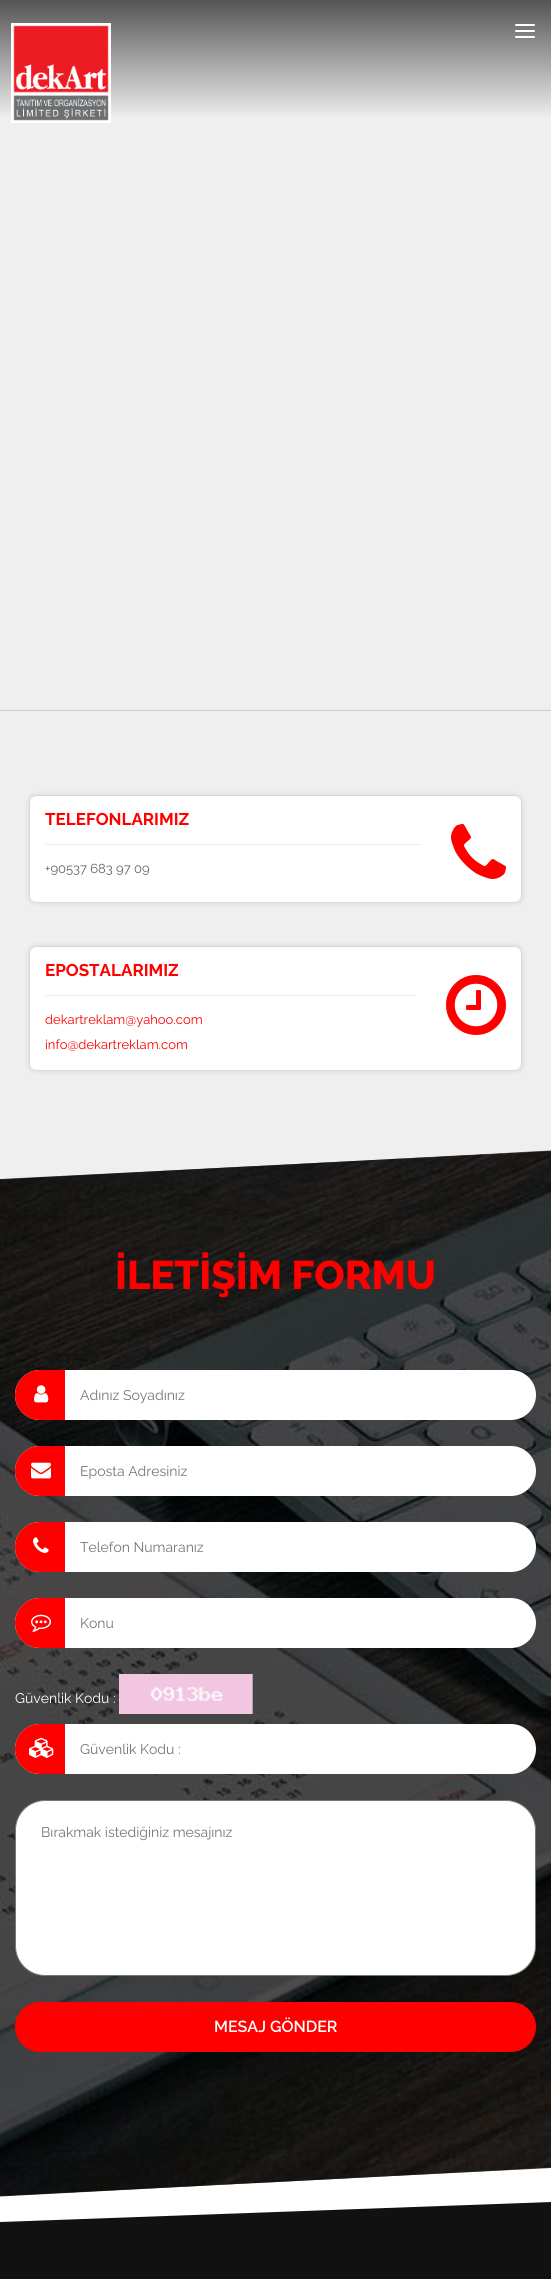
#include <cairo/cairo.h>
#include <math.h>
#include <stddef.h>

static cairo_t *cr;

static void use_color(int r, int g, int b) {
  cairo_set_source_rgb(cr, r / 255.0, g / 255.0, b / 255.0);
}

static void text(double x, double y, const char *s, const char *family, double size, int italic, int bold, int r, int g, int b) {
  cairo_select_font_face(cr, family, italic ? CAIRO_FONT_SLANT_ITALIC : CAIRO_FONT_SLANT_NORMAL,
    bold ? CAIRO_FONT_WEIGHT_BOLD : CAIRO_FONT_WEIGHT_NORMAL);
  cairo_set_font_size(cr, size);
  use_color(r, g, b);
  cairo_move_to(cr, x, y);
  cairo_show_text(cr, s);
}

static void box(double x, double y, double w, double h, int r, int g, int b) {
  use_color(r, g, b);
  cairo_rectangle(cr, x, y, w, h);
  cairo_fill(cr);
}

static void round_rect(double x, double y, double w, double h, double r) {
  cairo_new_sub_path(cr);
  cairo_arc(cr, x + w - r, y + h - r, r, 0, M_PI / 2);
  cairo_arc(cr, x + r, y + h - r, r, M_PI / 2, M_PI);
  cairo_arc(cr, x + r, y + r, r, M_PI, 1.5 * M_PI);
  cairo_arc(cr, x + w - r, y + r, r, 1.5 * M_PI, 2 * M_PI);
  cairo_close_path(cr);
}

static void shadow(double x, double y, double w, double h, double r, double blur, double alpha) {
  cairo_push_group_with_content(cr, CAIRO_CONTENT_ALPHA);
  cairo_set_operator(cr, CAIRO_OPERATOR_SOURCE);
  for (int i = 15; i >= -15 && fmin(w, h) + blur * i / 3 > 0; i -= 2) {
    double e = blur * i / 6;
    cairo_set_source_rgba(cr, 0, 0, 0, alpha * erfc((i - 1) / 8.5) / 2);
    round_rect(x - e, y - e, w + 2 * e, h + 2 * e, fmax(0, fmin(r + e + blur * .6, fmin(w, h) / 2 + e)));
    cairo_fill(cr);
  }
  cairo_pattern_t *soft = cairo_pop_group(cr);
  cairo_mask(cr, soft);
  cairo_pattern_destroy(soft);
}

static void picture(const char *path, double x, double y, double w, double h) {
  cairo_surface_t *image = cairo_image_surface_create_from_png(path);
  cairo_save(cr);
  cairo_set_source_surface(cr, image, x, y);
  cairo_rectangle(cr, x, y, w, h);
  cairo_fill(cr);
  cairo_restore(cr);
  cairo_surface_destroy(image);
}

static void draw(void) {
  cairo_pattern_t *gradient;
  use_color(255, 255, 255);
  cairo_paint(cr);
  box(0, 925, 551, 255, 239, 239, 239);
  cairo_new_path(cr);
  cairo_move_to(cr, -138, 0);
  cairo_line_to(cr, 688, -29);
  cairo_line_to(cr, 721, 919);
  cairo_line_to(cr, -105, 948);
  cairo_close_path(cr);
  cairo_fill(cr);
  gradient = cairo_pattern_create_linear(276, 0, 276, 120);
  cairo_pattern_add_color_stop_rgba(gradient, 0, 0.329, 0.329, 0.329, 1);
  cairo_pattern_add_color_stop_rgba(gradient, 0.99, 0.937, 0.937, 0.937, 1);
  cairo_pattern_add_color_stop_rgba(gradient, 1, 0.937, 0.937, 0.937, 1);
  cairo_set_source(cr, gradient);
  cairo_pattern_destroy(gradient);
  cairo_rectangle(cr, 0, 0, 551, 117);
  cairo_fill(cr);
  picture("img_01.png", 11, 23, 100, 100);
  use_color(255, 255, 255);
  round_rect(515, 24, 20, 2, 1);
  cairo_fill(cr);
  round_rect(515, 30, 20, 2, 1);
  cairo_fill(cr);
  round_rect(515, 36, 20, 2, 1);
  cairo_fill(cr);
  box(0, 710, 551, 1, 204, 204, 204);
  use_color(0, 0, 0);
  shadow(30, 796, 491, 106, 7, 3.5, 0.15);
  cairo_rectangle(cr, 29.5, 795.5, 492, 107);
  cairo_set_source_rgba(cr, 0, 0, 0, 0.03);
  cairo_set_line_width(cr, 1);
  cairo_stroke(cr);
  use_color(255, 255, 255);
  round_rect(30, 796, 491, 106, 7);
  cairo_fill(cr);
  box(45, 844, 376, 1, 238, 238, 238);
  picture("img_02.png", 451, 824, 55, 55);
  use_color(0, 0, 0);
  shadow(30, 947, 491, 123, 7, 3.5, 0.15);
  cairo_rectangle(cr, 29.5, 946.5, 492, 124);
  cairo_set_source_rgba(cr, 0, 0, 0, 0.03);
  cairo_stroke(cr);
  use_color(255, 255, 255);
  round_rect(30, 947, 491, 123, 7);
  cairo_fill(cr);
  box(45, 995, 371, 1, 238, 238, 238);
  picture("img_03.png", 446, 975, 60, 60);
  picture("img_04.png", 0, 1150, 551, 1047);
  cairo_set_source_rgba(cr, 0, 0, 0, 0.7);
  cairo_new_path(cr);
  cairo_move_to(cr, 0, 1179);
  cairo_line_to(cr, 551, 1151);
  cairo_line_to(cr, 551, 2168);
  cairo_line_to(cr, 0, 2196);
  cairo_close_path(cr);
  cairo_fill(cr);
  use_color(255, 255, 255);
  round_rect(15, 1370, 521, 50, 25);
  cairo_fill(cr);
  use_color(255, 0, 0);
  cairo_new_path(cr);
  cairo_move_to(cr, 40, 1370);
  cairo_line_to(cr, 65, 1370);
  cairo_line_to(cr, 65, 1420);
  cairo_line_to(cr, 40, 1420);
  cairo_curve_to(cr, 26, 1420, 15, 1409, 15, 1395);
  cairo_curve_to(cr, 15, 1381, 26, 1370, 40, 1370);
  cairo_close_path(cr);
  cairo_fill(cr);
  picture("img_05.png", 34, 1385, 15, 18);
  use_color(255, 255, 255);
  round_rect(15, 1446, 521, 50, 25);
  cairo_fill(cr);
  use_color(255, 0, 0);
  cairo_new_path(cr);
  cairo_move_to(cr, 40, 1446);
  cairo_line_to(cr, 65, 1446);
  cairo_line_to(cr, 65, 1496);
  cairo_line_to(cr, 40, 1496);
  cairo_curve_to(cr, 26, 1496, 15, 1485, 15, 1471);
  cairo_curve_to(cr, 15, 1457, 26, 1446, 40, 1446);
  cairo_close_path(cr);
  cairo_fill(cr);
  picture("img_06.png", 31, 1462, 20, 17);
  use_color(255, 255, 255);
  round_rect(15, 1522, 521, 50, 25);
  cairo_fill(cr);
  use_color(255, 0, 0);
  cairo_new_path(cr);
  cairo_move_to(cr, 40, 1522);
  cairo_line_to(cr, 65, 1522);
  cairo_line_to(cr, 65, 1572);
  cairo_line_to(cr, 40, 1572);
  cairo_curve_to(cr, 26, 1572, 15, 1561, 15, 1547);
  cairo_curve_to(cr, 15, 1533, 26, 1522, 40, 1522);
  cairo_close_path(cr);
  cairo_fill(cr);
  picture("img_07.png", 33, 1537, 16, 16);
  use_color(255, 255, 255);
  round_rect(15, 1598, 521, 50, 25);
  cairo_fill(cr);
  use_color(255, 0, 0);
  cairo_new_path(cr);
  cairo_move_to(cr, 40, 1598);
  cairo_line_to(cr, 65, 1598);
  cairo_line_to(cr, 65, 1648);
  cairo_line_to(cr, 40, 1648);
  cairo_curve_to(cr, 26, 1648, 15, 1637, 15, 1623);
  cairo_curve_to(cr, 15, 1609, 26, 1598, 40, 1598);
  cairo_close_path(cr);
  cairo_fill(cr);
  picture("img_08.png", 31, 1614, 20, 18);
  picture("img_09.png", 119, 1674, 134, 40);
  use_color(255, 255, 255);
  round_rect(15, 1724, 521, 50, 25);
  cairo_fill(cr);
  use_color(255, 0, 0);
  cairo_new_path(cr);
  cairo_move_to(cr, 40, 1724);
  cairo_line_to(cr, 65, 1724);
  cairo_line_to(cr, 65, 1774);
  cairo_line_to(cr, 40, 1774);
  cairo_curve_to(cr, 26, 1774, 15, 1763, 15, 1749);
  cairo_curve_to(cr, 15, 1735, 26, 1724, 40, 1724);
  cairo_close_path(cr);
  cairo_fill(cr);
  picture("img_10.png", 29, 1737, 25, 21);
  use_color(255, 255, 255);
  round_rect(15.5, 1800.5, 520, 175, 29.5);
  cairo_fill_preserve(cr);
  use_color(118, 118, 118);
  cairo_stroke(cr);
  use_color(255, 0, 0);
  round_rect(15, 2002, 521, 50, 25);
  cairo_fill(cr);
  use_color(17, 17, 17);
  cairo_new_path(cr);
  cairo_move_to(cr, 0, 2222);
  cairo_line_to(cr, 551, 2202);
  cairo_line_to(cr, 551, 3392);
  cairo_line_to(cr, 0, 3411);
  cairo_close_path(cr);
  cairo_fill(cr);
  text(45, 825, "TELEFONLARIMIZ", "Raleway", 17, 0, 1, 255, 0, 0);
  text(45, 873, "+90537 683 97 09", "Raleway", 13, 0, 0, 102, 102, 102);
  text(45, 976, "EPOSTALARIMIZ", "Raleway", 17, 0, 1, 255, 0, 0);
  text(45, 1024, "dekartreklam@yahoo.com", "Raleway", 13, 0, 0, 255, 0, 0);
  text(45, 1049, "info@dekartreklam.com", "Raleway", 13, 0, 0, 255, 0, 0);
  text(115, 1289, "İLETİŞİM FORMU", "Raleway ExtraBold", 40, 0, 0, 255, 0, 0);
  text(80, 1400, "Adınız Soyadınız", "Raleway", 14, 0, 0, 117, 117, 117);
  text(80, 1476, "Eposta Adresiniz", "Raleway", 14, 0, 0, 117, 117, 117);
  text(80, 1552, "Telefon Numaranız", "Raleway", 14, 0, 0, 117, 117, 117);
  text(80, 1628, "Konu", "Raleway", 14, 0, 0, 117, 117, 117);
  text(15, 1703, "Güvenlik Kodu :", "Raleway", 14, 0, 0, 255, 255, 255);
  text(80, 1754, "Güvenlik Kodu :", "Raleway", 14, 0, 0, 117, 117, 117);
  text(41, 1837, "Bırakmak istediğiniz mesajınız", "Raleway", 14, 0, 0, 117, 117, 117);
  text(214, 2032, "MESAJ GÖNDER", "Raleway SemiBold", 16, 0, 0, 255, 255, 255);
}

int main(void) {
  cairo_surface_t *surface = cairo_image_surface_create(CAIRO_FORMAT_RGB24, 551, 2279);
  cr = cairo_create(surface);
  cairo_font_options_t *options = cairo_font_options_create();
  cairo_font_options_set_hint_metrics(options, CAIRO_HINT_METRICS_OFF);
  cairo_font_options_set_hint_style(options, CAIRO_HINT_STYLE_NONE);
  cairo_set_font_options(cr, options);
  cairo_set_miter_limit(cr, 4);
  draw();
  cairo_surface_write_to_png(surface, "out.png");
  cairo_font_options_destroy(options);
  cairo_destroy(cr);
  cairo_surface_destroy(surface);
  return 0;
}
